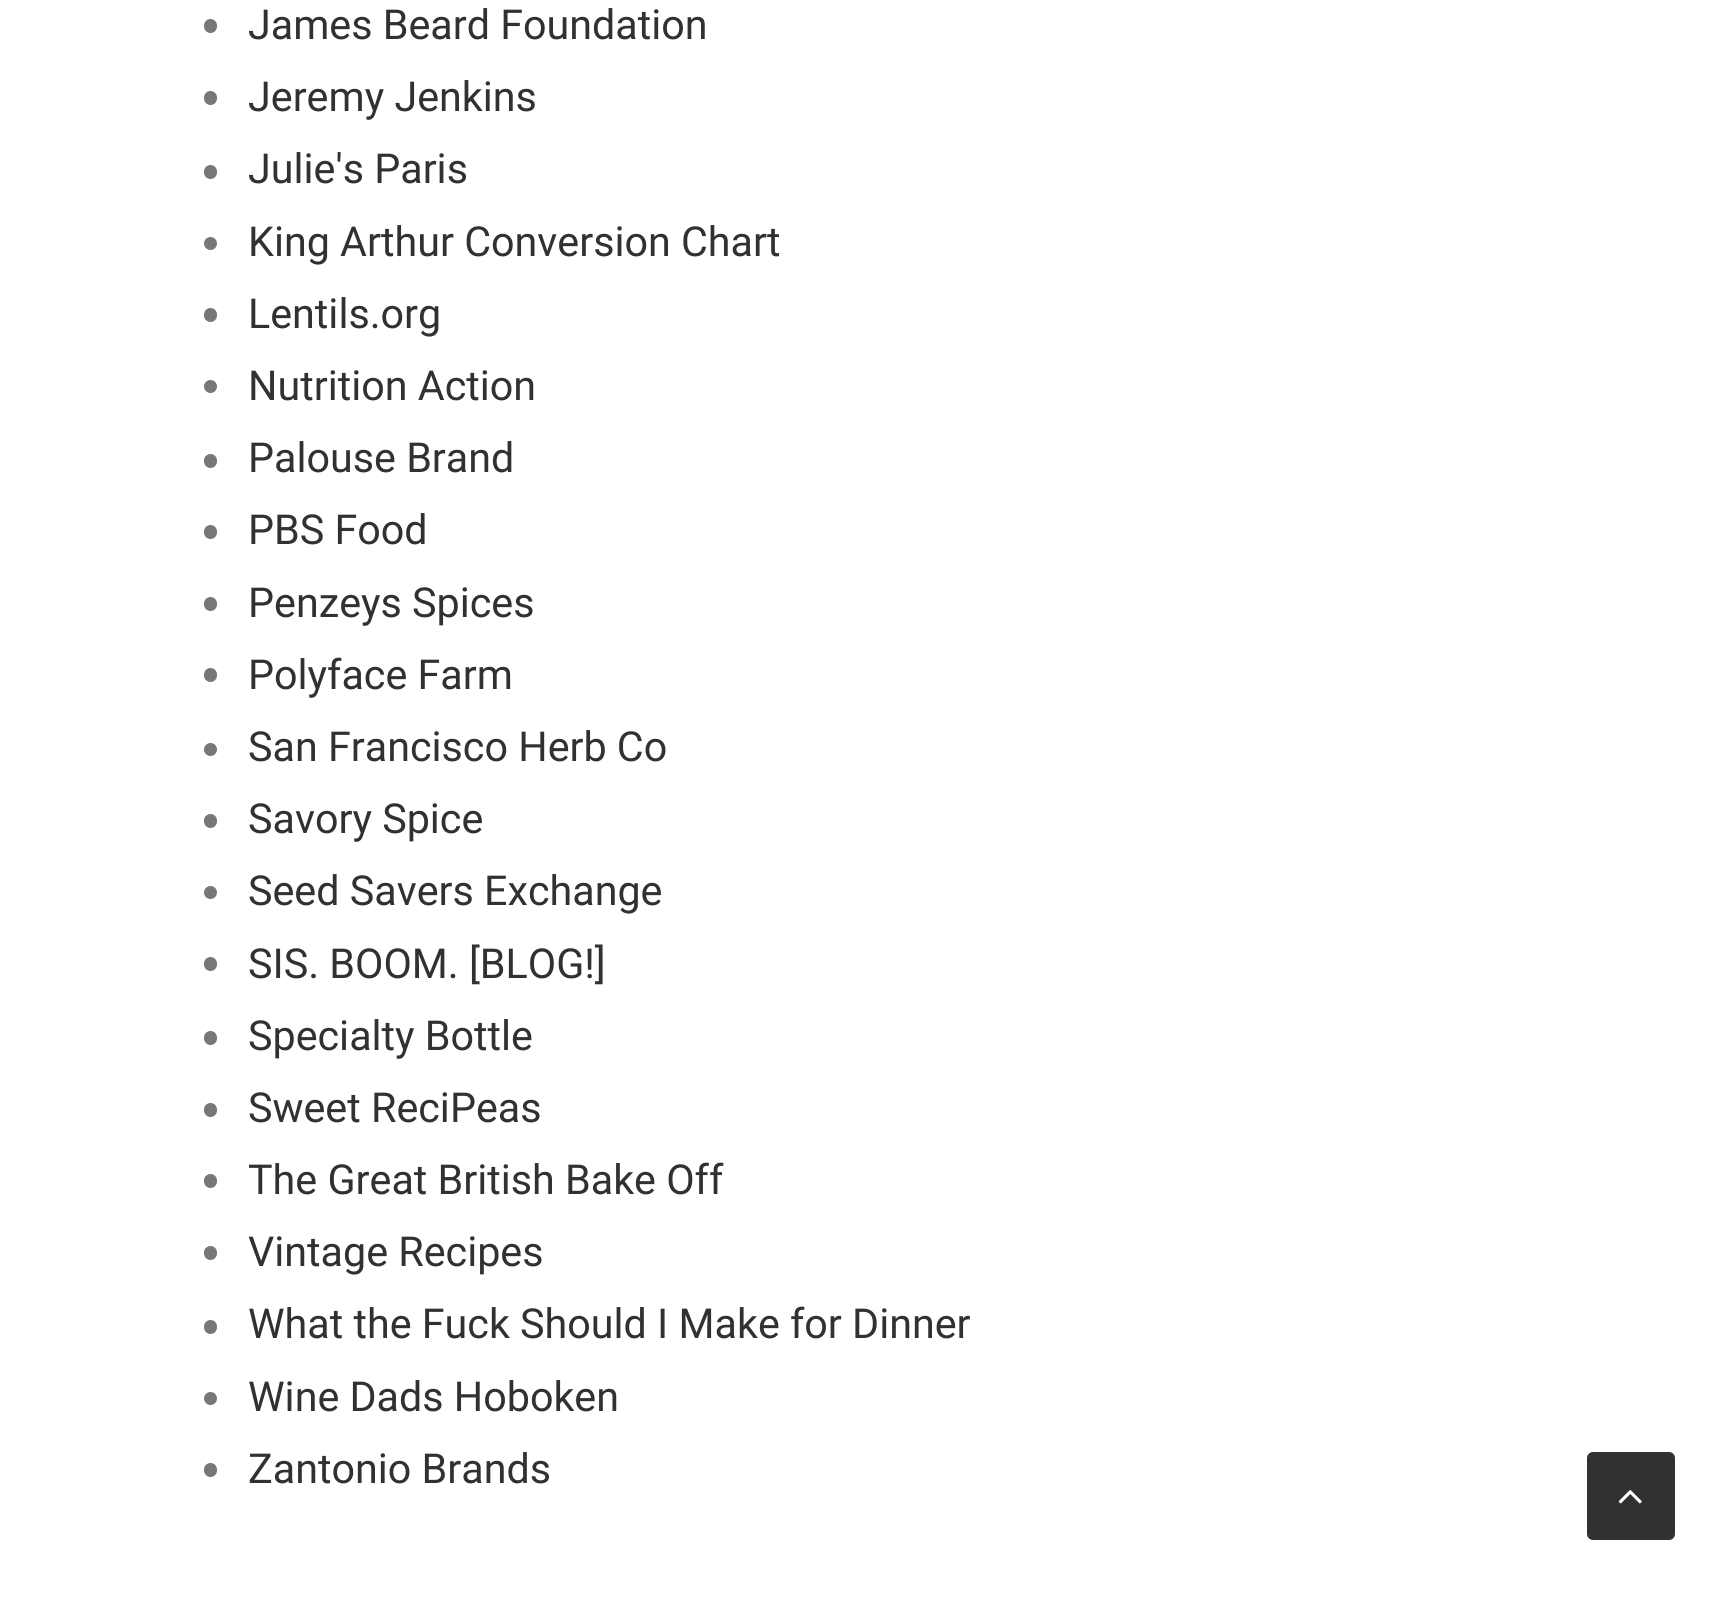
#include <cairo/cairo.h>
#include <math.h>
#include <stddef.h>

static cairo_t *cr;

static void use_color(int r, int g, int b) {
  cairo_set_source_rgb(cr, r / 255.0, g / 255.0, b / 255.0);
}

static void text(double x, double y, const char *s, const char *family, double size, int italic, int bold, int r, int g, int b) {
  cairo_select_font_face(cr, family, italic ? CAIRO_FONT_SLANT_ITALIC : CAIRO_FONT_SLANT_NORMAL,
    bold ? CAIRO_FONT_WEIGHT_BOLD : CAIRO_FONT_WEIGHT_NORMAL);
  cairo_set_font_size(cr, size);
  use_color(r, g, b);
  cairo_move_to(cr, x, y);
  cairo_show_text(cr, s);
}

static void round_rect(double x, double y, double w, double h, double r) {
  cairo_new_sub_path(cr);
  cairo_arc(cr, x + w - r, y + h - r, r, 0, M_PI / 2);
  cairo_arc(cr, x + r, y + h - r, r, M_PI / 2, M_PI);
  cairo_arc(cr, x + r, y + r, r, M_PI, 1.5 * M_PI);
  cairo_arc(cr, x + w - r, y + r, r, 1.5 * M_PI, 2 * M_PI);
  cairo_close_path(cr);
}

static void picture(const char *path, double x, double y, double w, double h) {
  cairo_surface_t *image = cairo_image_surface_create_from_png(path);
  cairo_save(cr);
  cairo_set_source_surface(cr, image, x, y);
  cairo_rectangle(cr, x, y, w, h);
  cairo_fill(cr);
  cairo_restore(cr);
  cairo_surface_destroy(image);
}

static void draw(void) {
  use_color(255, 255, 255);
  cairo_paint(cr);
  use_color(119, 119, 119);
  round_rect(204, 19, 13, 14, 6.5);
  cairo_fill(cr);
  round_rect(204, 91, 13, 14, 6.5);
  cairo_fill(cr);
  round_rect(204, 165, 13, 14, 6.5);
  cairo_fill(cr);
  cairo_arc(cr, 210.5, 243.5, 6.5, 0, 2 * M_PI);
  cairo_fill(cr);
  round_rect(204, 308, 13, 14, 6.5);
  cairo_fill(cr);
  cairo_arc(cr, 210.5, 386.5, 6.5, 0, 2 * M_PI);
  cairo_fill(cr);
  round_rect(204, 454, 13, 14, 6.5);
  cairo_fill(cr);
  round_rect(204, 525, 13, 14, 6.5);
  cairo_fill(cr);
  round_rect(204, 597, 13, 14, 6.5);
  cairo_fill(cr);
  round_rect(204, 668, 13, 14, 6.5);
  cairo_fill(cr);
  cairo_arc(cr, 210.5, 749.5, 6.5, 0, 2 * M_PI);
  cairo_fill(cr);
  round_rect(204, 814, 13, 14, 6.5);
  cairo_fill(cr);
  cairo_arc(cr, 210.5, 892.5, 6.5, 0, 2 * M_PI);
  cairo_fill(cr);
  round_rect(204, 957, 13, 14, 6.5);
  cairo_fill(cr);
  round_rect(204, 1031, 13, 14, 6.5);
  cairo_fill(cr);
  round_rect(204, 1103, 13, 14, 6.5);
  cairo_fill(cr);
  round_rect(204, 1174, 13, 14, 6.5);
  cairo_fill(cr);
  round_rect(204, 1246, 13, 14, 6.5);
  cairo_fill(cr);
  round_rect(204, 1320, 13, 14, 6.5);
  cairo_fill(cr);
  cairo_arc(cr, 210.5, 1398.5, 6.5, 0, 2 * M_PI);
  cairo_fill(cr);
  round_rect(204, 1463, 13, 14, 6.5);
  cairo_fill(cr);
  use_color(48, 49, 51);
  round_rect(1588.5, 1453.5, 85, 85, 4.5);
  cairo_fill_preserve(cr);
  cairo_set_line_width(cr, 3);
  cairo_stroke(cr);
  picture("img_01.png", 1618, 1490, 24, 14);
  text(248, 39, "James Beard Foundation", "Roboto", 41.25, 0, 0, 48, 49, 51);
  text(248, 111, "Jeremy Jenkins", "Roboto", 41.25, 0, 0, 48, 49, 51);
  text(248, 183, "Julie's Paris", "Roboto", 41.25, 0, 0, 48, 49, 51);
  text(248, 256, "King Arthur Conversion Chart", "Roboto", 41.25, 0, 0, 48, 49, 51);
  text(248, 328, "Lentils.org", "Roboto", 41.25, 0, 0, 48, 49, 51);
  text(248, 400, "Nutrition Action", "Roboto", 41.25, 0, 0, 48, 49, 51);
  text(248, 472, "Palouse Brand", "Roboto", 41.25, 0, 0, 48, 49, 51);
  text(248, 544, "PBS Food", "Roboto", 41.25, 0, 0, 48, 49, 51);
  text(248, 617, "Penzeys Spices", "Roboto", 41.25, 0, 0, 48, 49, 51);
  text(248, 689, "Polyface Farm", "Roboto", 41.25, 0, 0, 48, 49, 51);
  text(248, 761, "San Francisco Herb Co", "Roboto", 41.25, 0, 0, 48, 49, 51);
  text(248, 833, "Savory Spice", "Roboto", 41.25, 0, 0, 48, 49, 51);
  text(248, 905, "Seed Savers Exchange", "Roboto", 41.25, 0, 0, 48, 49, 51);
  text(248, 978, "SIS. BOOM. [BLOG!]", "Roboto", 41.25, 0, 0, 48, 49, 51);
  text(248, 1050, "Specialty Bottle", "Roboto", 41.25, 0, 0, 48, 49, 51);
  text(248, 1122, "Sweet ReciPeas", "Roboto", 41.25, 0, 0, 48, 49, 51);
  text(248, 1194, "The Great British Bake Off", "Roboto", 41.25, 0, 0, 48, 49, 51);
  text(248, 1266, "Vintage Recipes", "Roboto", 41.25, 0, 0, 48, 49, 51);
  text(248, 1338, "What the Fuck Should I Make for Dinner", "Roboto", 41.25, 0, 0, 48, 49, 51);
  text(248, 1411, "Wine Dads Hoboken", "Roboto", 41.25, 0, 0, 48, 49, 51);
  text(248, 1483, "Zantonio Brands", "Roboto", 41.25, 0, 0, 48, 49, 51);
}

int main(void) {
  cairo_surface_t *surface = cairo_image_surface_create(CAIRO_FORMAT_RGB24, 1735, 1599);
  cr = cairo_create(surface);
  cairo_font_options_t *options = cairo_font_options_create();
  cairo_font_options_set_hint_metrics(options, CAIRO_HINT_METRICS_OFF);
  cairo_font_options_set_hint_style(options, CAIRO_HINT_STYLE_NONE);
  cairo_set_font_options(cr, options);
  cairo_set_miter_limit(cr, 4);
  draw();
  cairo_surface_write_to_png(surface, "out.png");
  cairo_font_options_destroy(options);
  cairo_destroy(cr);
  cairo_surface_destroy(surface);
  return 0;
}
